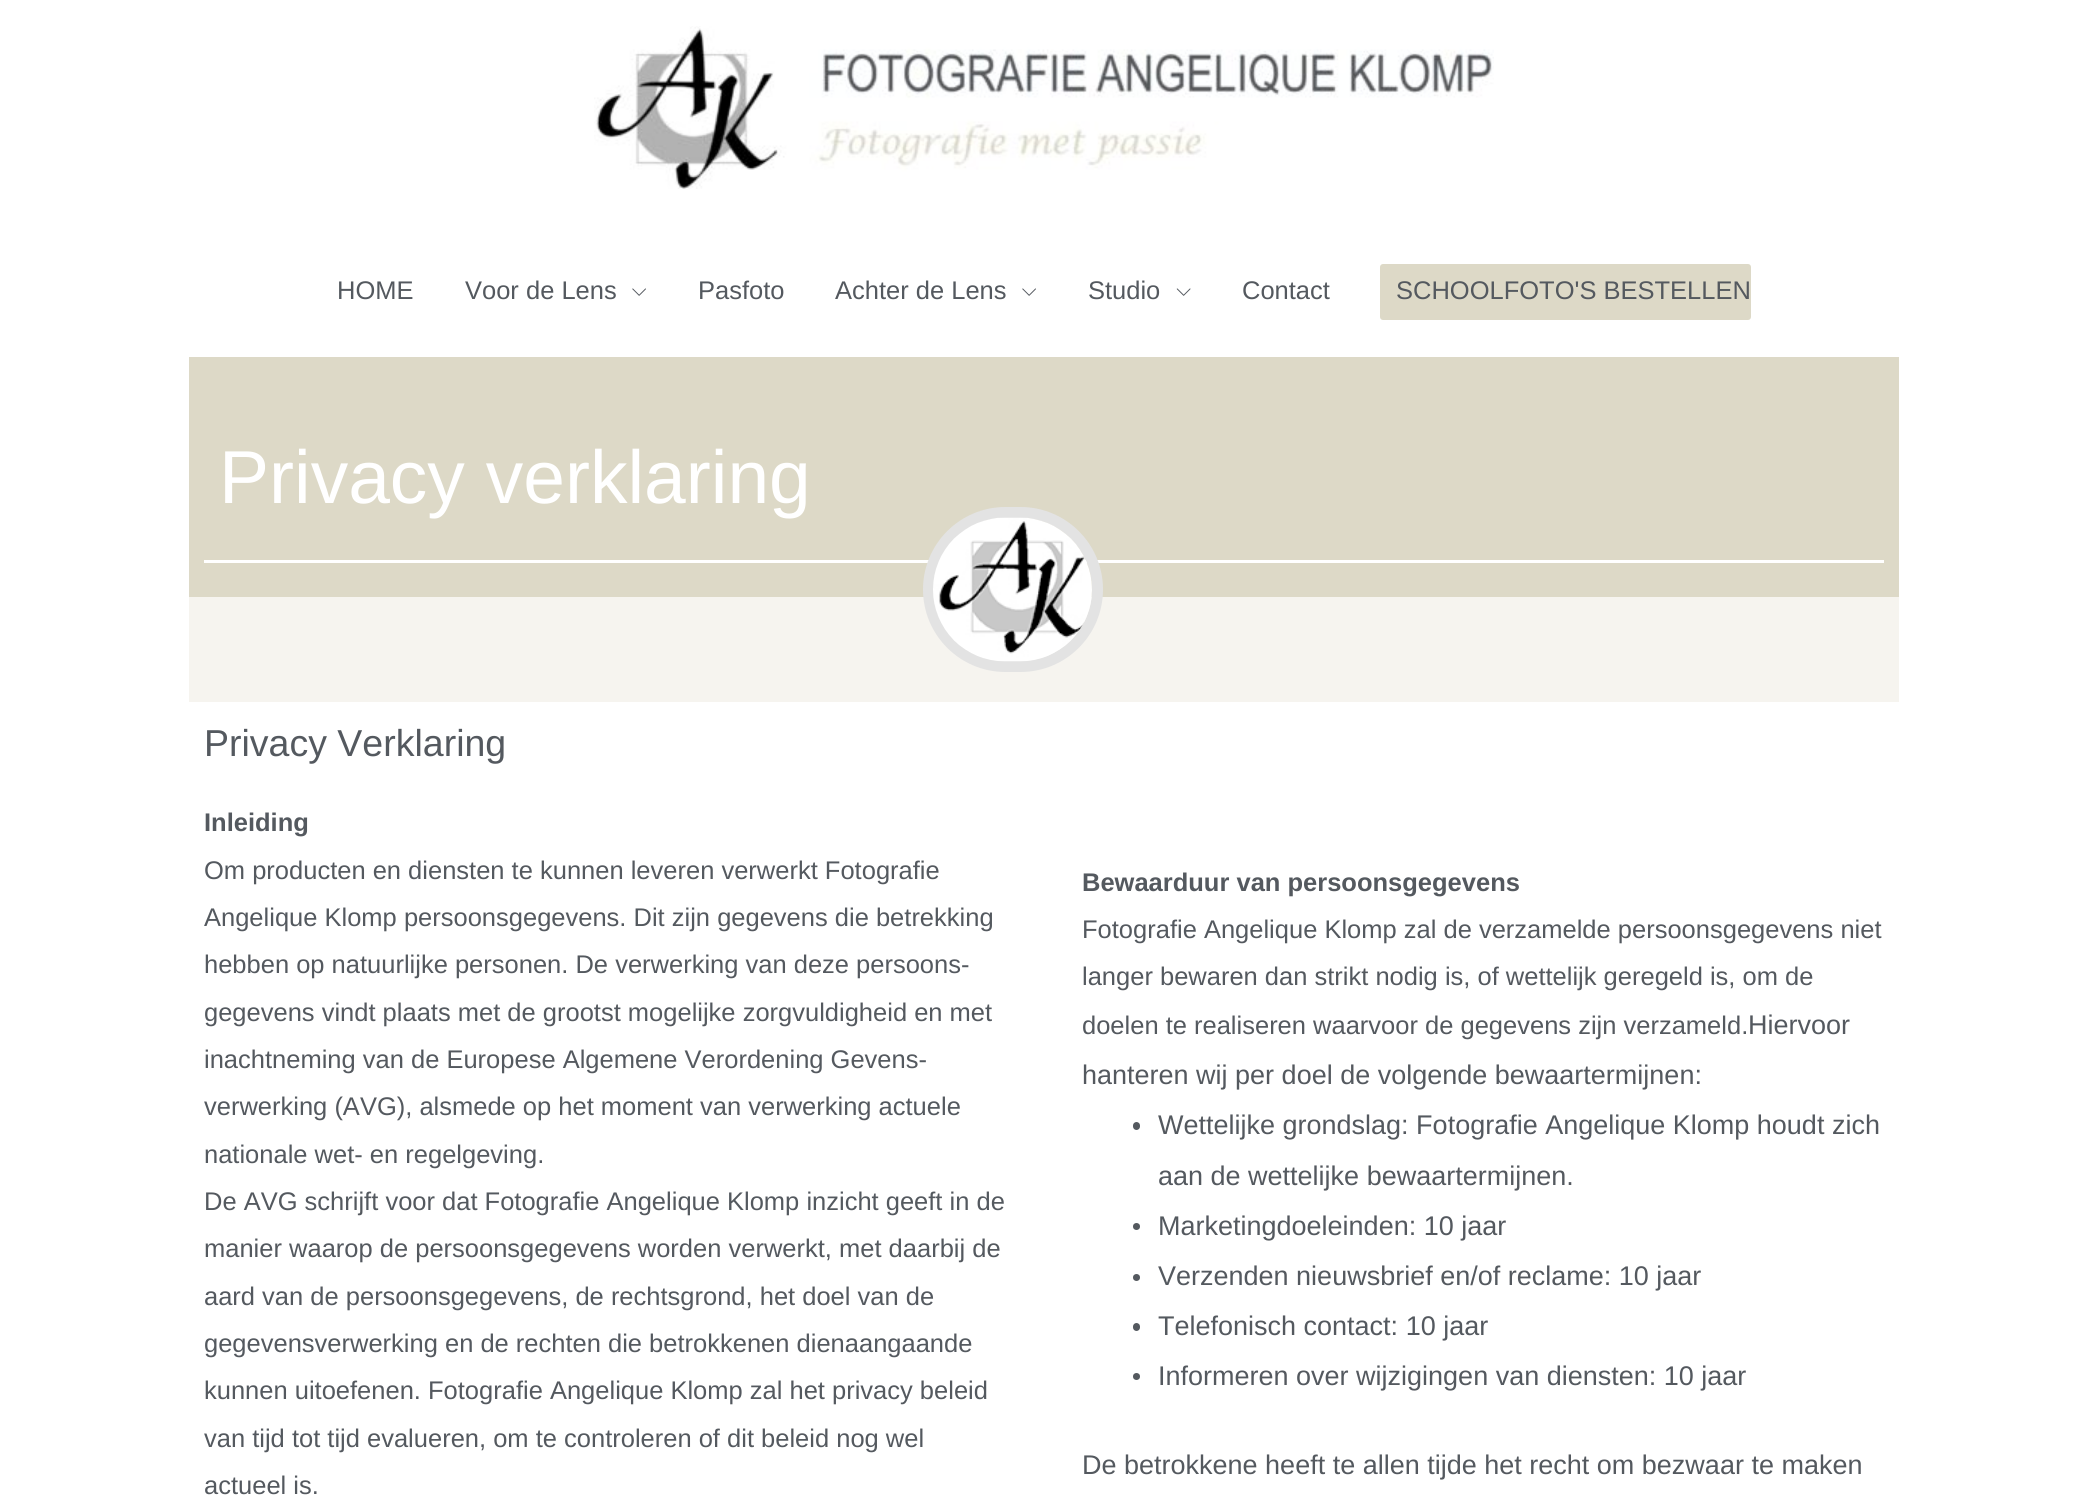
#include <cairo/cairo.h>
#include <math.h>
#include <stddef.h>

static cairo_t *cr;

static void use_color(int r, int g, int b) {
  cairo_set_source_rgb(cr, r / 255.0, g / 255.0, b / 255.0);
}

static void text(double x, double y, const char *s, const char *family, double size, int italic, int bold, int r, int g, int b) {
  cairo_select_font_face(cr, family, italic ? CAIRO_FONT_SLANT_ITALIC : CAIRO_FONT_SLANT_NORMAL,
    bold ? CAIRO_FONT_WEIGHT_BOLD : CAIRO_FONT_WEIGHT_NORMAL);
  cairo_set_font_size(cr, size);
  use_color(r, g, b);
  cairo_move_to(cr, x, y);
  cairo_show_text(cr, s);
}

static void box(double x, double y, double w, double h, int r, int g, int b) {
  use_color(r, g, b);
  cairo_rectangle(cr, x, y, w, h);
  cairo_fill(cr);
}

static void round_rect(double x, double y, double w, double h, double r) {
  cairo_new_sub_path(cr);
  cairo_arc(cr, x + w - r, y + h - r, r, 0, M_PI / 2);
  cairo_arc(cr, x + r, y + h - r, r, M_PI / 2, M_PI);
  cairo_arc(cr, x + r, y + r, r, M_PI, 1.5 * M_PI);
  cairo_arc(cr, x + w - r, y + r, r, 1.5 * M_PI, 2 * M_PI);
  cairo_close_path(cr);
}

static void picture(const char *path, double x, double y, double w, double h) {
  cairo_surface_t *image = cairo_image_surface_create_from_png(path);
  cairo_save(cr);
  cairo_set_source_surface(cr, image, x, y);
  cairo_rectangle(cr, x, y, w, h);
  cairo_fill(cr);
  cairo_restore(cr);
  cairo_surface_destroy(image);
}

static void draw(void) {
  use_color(255, 255, 255);
  cairo_paint(cr);
  picture("img_01.png", 594, 26, 900, 163);
  picture("img_02.png", 632, 288, 14, 8);
  picture("img_02.png", 1022, 288, 14, 8);
  picture("img_03.png", 1176, 288, 15, 8);
  use_color(221, 217, 199);
  round_rect(1380, 264, 371, 56, 3);
  cairo_fill(cr);
  box(189, 357, 1710, 240, 221, 217, 199);
  box(204, 560, 1680, 3, 255, 255, 255);
  box(189, 597, 1710, 105, 246, 244, 239);
  round_rect(928.5, 512.5, 169, 154, 77);
  use_color(227, 227, 227);
  cairo_set_line_width(cr, 11);
  cairo_stroke(cr);
  picture("img_04.png", 933, 517, 159, 145);
  use_color(84, 89, 95);
  round_rect(1133, 1122, 7, 8, 3.5);
  cairo_fill(cr);
  cairo_arc(cr, 1136.5, 1226.5, 3.5, 0, 2 * M_PI);
  cairo_fill(cr);
  cairo_arc(cr, 1136.5, 1277.5, 3.5, 0, 2 * M_PI);
  cairo_fill(cr);
  round_rect(1133, 1323, 7, 8, 3.5);
  cairo_fill(cr);
  cairo_arc(cr, 1136.5, 1376.5, 3.5, 0, 2 * M_PI);
  cairo_fill(cr);
  text(337, 299, "HOME", "Liberation Sans", 25.5, 0, 0, 84, 89, 95);
  text(465, 299, "Voor de Lens", "Liberation Sans", 25.5, 0, 0, 84, 89, 95);
  text(698, 299, "Pasfoto", "Liberation Sans", 25.5, 0, 0, 84, 89, 95);
  text(835, 299, "Achter de Lens", "Liberation Sans", 25.5, 0, 0, 84, 89, 95);
  text(1088, 299, "Studio", "Liberation Sans", 25.5, 0, 0, 84, 89, 95);
  text(1242, 299, "Contact", "Liberation Sans", 25.5, 0, 0, 84, 89, 95);
  text(1396, 299, "SCHOOLFOTO'S BESTELLEN", "Liberation Sans", 25.5, 0, 0, 84, 89, 95);
  text(219, 503, "Privacy verklaring", "Liberation Sans", 75, 0, 0, 255, 255, 255);
  text(204, 756, "Privacy Verklaring", "Liberation Sans", 37.5, 0, 0, 84, 89, 95);
  text(204, 831, "Inleiding", "Liberation Sans", 25.5, 0, 1, 84, 89, 95);
  text(204, 879, "Om producten en diensten te kunnen leveren verwerkt Fotografie", "Liberation Sans", 25.5, 0, 0, 84, 89, 95);
  text(204, 926, "Angelique Klomp persoonsgegevens. Dit zijn gegevens die betrekking", "Liberation Sans", 25.5, 0, 0, 84, 89, 95);
  text(204, 973, "hebben op natuurlijke personen. De verwerking van deze persoons-", "Liberation Sans", 25.5, 0, 0, 84, 89, 95);
  text(204, 1021, "gegevens vindt plaats met de grootst mogelijke zorgvuldigheid en met", "Liberation Sans", 25.5, 0, 0, 84, 89, 95);
  text(204, 1068, "inachtneming van de Europese Algemene Verordening Gevens-", "Liberation Sans", 25.5, 0, 0, 84, 89, 95);
  text(204, 1115, "verwerking (AVG), alsmede op het moment van verwerking actuele", "Liberation Sans", 25.5, 0, 0, 84, 89, 95);
  text(204, 1163, "nationale wet- en regelgeving.", "Liberation Sans", 25.5, 0, 0, 84, 89, 95);
  text(204, 1210, "De AVG schrijft voor dat Fotografie Angelique Klomp inzicht geeft in de", "Liberation Sans", 25.5, 0, 0, 84, 89, 95);
  text(204, 1257, "manier waarop de persoonsgegevens worden verwerkt, met daarbij de", "Liberation Sans", 25.5, 0, 0, 84, 89, 95);
  text(204, 1305, "aard van de persoonsgegevens, de rechtsgrond, het doel van de", "Liberation Sans", 25.5, 0, 0, 84, 89, 95);
  text(204, 1352, "gegevensverwerking en de rechten die betrokkenen dienaangaande", "Liberation Sans", 25.5, 0, 0, 84, 89, 95);
  text(204, 1399, "kunnen uitoefenen. Fotografie Angelique Klomp zal het privacy beleid", "Liberation Sans", 25.5, 0, 0, 84, 89, 95);
  text(204, 1447, "van tijd tot tijd evalueren, om te controleren of dit beleid nog wel", "Liberation Sans", 25.5, 0, 0, 84, 89, 95);
  text(204, 1494, "actueel is.", "Liberation Sans", 25.5, 0, 0, 84, 89, 95);
  text(1082, 891, "Bewaarduur van persoonsgegevens", "Liberation Sans", 25.5, 0, 1, 84, 89, 95);
  text(1082, 938, "Fotografie Angelique Klomp zal de verzamelde persoonsgegevens niet", "Liberation Sans", 25.5, 0, 0, 84, 89, 95);
  text(1082, 985, "langer bewaren dan strikt nodig is, of wettelijk geregeld is, om de", "Liberation Sans", 25.5, 0, 0, 84, 89, 95);
  text(1082, 1034, "doelen te realiseren waarvoor de gegevens zijn verzameld.", "Liberation Sans", 25.5, 0, 0, 84, 89, 95);
  text(1748, 1034, "Hiervoor", "Liberation Sans", 27, 0, 0, 84, 89, 95);
  text(1082, 1084, "hanteren wij per doel de volgende bewaartermijnen:", "Liberation Sans", 27, 0, 0, 84, 89, 95);
  text(1158, 1134, "Wettelijke grondslag: Fotografie Angelique Klomp houdt zich", "Liberation Sans", 27, 0, 0, 84, 89, 95);
  text(1158, 1185, "aan de wettelijke bewaartermijnen.", "Liberation Sans", 27, 0, 0, 84, 89, 95);
  text(1158, 1235, "Marketingdoeleinden: 10 jaar", "Liberation Sans", 27, 0, 0, 84, 89, 95);
  text(1158, 1285, "Verzenden nieuwsbrief en/of reclame: 10 jaar", "Liberation Sans", 27, 0, 0, 84, 89, 95);
  text(1158, 1335, "Telefonisch contact: 10 jaar", "Liberation Sans", 27, 0, 0, 84, 89, 95);
  text(1158, 1385, "Informeren over wijzigingen van diensten: 10 jaar", "Liberation Sans", 27, 0, 0, 84, 89, 95);
  text(1082, 1474, "De betrokkene heeft te allen tijde het recht om bezwaar te maken", "Liberation Sans", 27, 0, 0, 84, 89, 95);
}

int main(void) {
  cairo_surface_t *surface = cairo_image_surface_create(CAIRO_FORMAT_RGB24, 2087, 1502);
  cr = cairo_create(surface);
  cairo_font_options_t *options = cairo_font_options_create();
  cairo_font_options_set_hint_metrics(options, CAIRO_HINT_METRICS_OFF);
  cairo_font_options_set_hint_style(options, CAIRO_HINT_STYLE_NONE);
  cairo_set_font_options(cr, options);
  cairo_set_miter_limit(cr, 4);
  draw();
  cairo_surface_write_to_png(surface, "out.png");
  cairo_font_options_destroy(options);
  cairo_destroy(cr);
  cairo_surface_destroy(surface);
  return 0;
}
